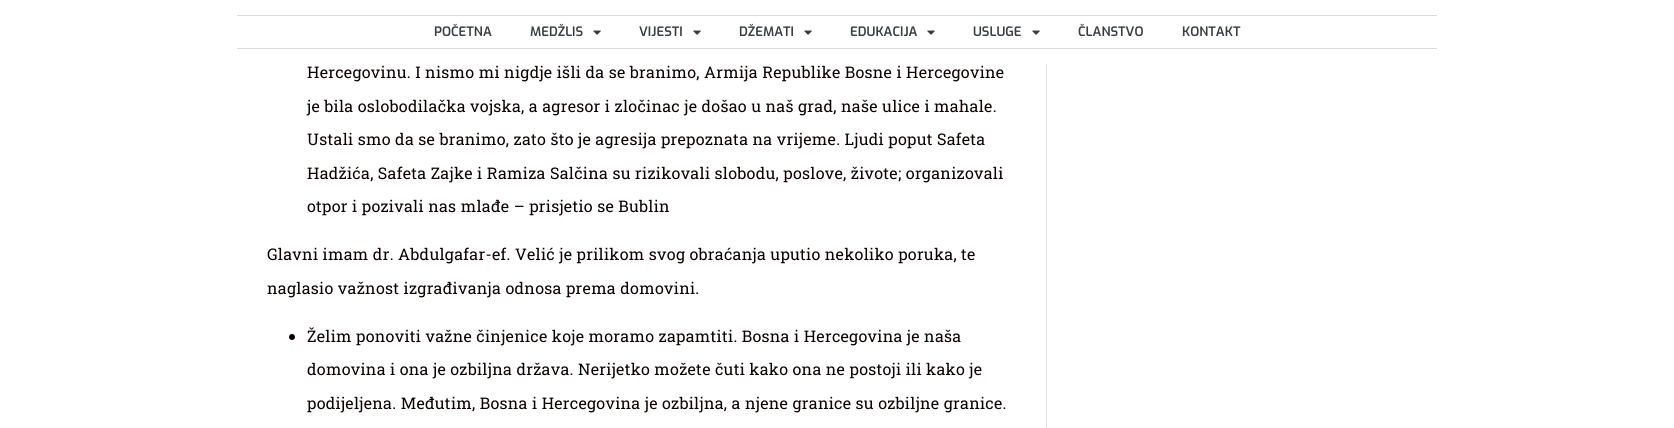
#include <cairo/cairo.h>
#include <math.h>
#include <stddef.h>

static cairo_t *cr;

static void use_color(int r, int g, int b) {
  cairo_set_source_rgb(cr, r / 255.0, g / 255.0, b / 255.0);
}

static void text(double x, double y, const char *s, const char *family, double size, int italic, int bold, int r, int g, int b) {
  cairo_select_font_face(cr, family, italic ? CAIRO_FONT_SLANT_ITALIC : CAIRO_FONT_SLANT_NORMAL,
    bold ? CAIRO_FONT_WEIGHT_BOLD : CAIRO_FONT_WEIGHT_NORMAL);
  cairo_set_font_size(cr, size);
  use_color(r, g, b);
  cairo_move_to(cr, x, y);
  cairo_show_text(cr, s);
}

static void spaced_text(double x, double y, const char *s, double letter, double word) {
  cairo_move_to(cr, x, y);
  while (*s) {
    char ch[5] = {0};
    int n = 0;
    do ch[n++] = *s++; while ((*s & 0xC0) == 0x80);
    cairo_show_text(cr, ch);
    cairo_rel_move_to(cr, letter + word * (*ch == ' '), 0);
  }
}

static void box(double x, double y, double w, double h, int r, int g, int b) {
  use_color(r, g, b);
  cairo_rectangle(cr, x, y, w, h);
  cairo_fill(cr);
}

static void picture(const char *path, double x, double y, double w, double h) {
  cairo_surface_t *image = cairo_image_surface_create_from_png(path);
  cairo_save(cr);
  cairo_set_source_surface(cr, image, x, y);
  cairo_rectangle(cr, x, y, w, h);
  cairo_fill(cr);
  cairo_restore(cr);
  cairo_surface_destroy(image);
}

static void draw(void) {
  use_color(255, 255, 255);
  cairo_paint(cr);
  box(237, 15, 1200, 1, 219, 219, 219);
  box(237, 48, 1200, 1, 219, 219, 219);
  picture("img_01.png", 593, 30, 8, 5);
  picture("img_01.png", 693, 30, 8, 5);
  picture("img_01.png", 804, 30, 8, 5);
  picture("img_01.png", 927, 30, 8, 5);
  picture("img_01.png", 1032, 30, 8, 5);
  use_color(12, 0, 0);
  cairo_arc(cr, 292, 337, 3, 0, 2 * M_PI);
  cairo_fill(cr);
  box(1046, 64, 1, 364, 226, 226, 226);
  text(434, 36, "POČETNA", "Exo SemiBold", 13, 0, 0, 57, 62, 66);
  text(530, 36, "MEDŽLIS", "Exo SemiBold", 13, 0, 0, 57, 62, 66);
  text(639, 36, "VIJESTI", "Exo SemiBold", 13, 0, 0, 57, 62, 66);
  text(739, 36, "DŽEMATI", "Exo SemiBold", 13, 0, 0, 57, 62, 66);
  text(850, 36, "EDUKACIJA", "Exo SemiBold", 13, 0, 0, 57, 62, 66);
  text(973, 36, "USLUGE", "Exo SemiBold", 13, 0, 0, 57, 62, 66);
  text(1078, 36, "ČLANSTVO", "Exo SemiBold", 13, 0, 0, 57, 62, 66);
  text(1182, 36, "KONTAKT", "Exo SemiBold", 13, 0, 0, 57, 62, 66);
  cairo_select_font_face(cr, "Roboto Slab", CAIRO_FONT_SLANT_NORMAL, CAIRO_FONT_WEIGHT_NORMAL);
  cairo_set_font_size(cr, 16);
  use_color(12, 0, 0);
  spaced_text(307, 78, "Hercegovinu. I nismo mi nigdje išli da se branimo, Armija Republike Bosne i Hercegovine", 0.3, 0);
  spaced_text(307, 112, "je bila oslobodilačka vojska, a agresor i zločinac je došao u naš grad, naše ulice i mahale.", 0.3, 0);
  spaced_text(307, 145, "Ustali smo da se branimo, zato što je agresija prepoznata na vrijeme. Ljudi poput Safeta", 0.3, 0);
  spaced_text(307, 179, "Hadžića, Safeta Zajke i Ramiza Salčina su rizikovali slobodu, poslove, živote; organizovali", 0.3, 0);
  spaced_text(307, 212, "otpor i pozivali nas mlađe – prisjetio se Bublin", 0.3, 0);
  spaced_text(267, 260, "Glavni imam dr. Abdulgafar-ef. Velić je prilikom svog obraćanja uputio nekoliko poruka, te", 0.3, 0);
  spaced_text(267, 294, "naglasio važnost izgrađivanja odnosa prema domovini.", 0.3, 0);
  spaced_text(307, 342, "Želim ponoviti važne činjenice koje moramo zapamtiti. Bosna i Hercegovina je naša", 0.3, 0);
  spaced_text(307, 375, "domovina i ona je ozbiljna država. Nerijetko možete čuti kako ona ne postoji ili kako je", 0.3, 0);
  spaced_text(307, 409, "podijeljena. Međutim, Bosna i Hercegovina je ozbiljna, a njene granice su ozbiljne granice.", 0.3, 0);
}

int main(void) {
  cairo_surface_t *surface = cairo_image_surface_create(CAIRO_FORMAT_RGB24, 1674, 428);
  cr = cairo_create(surface);
  cairo_font_options_t *options = cairo_font_options_create();
  cairo_font_options_set_hint_metrics(options, CAIRO_HINT_METRICS_OFF);
  cairo_font_options_set_hint_style(options, CAIRO_HINT_STYLE_NONE);
  cairo_set_font_options(cr, options);
  cairo_set_miter_limit(cr, 4);
  draw();
  cairo_surface_write_to_png(surface, "out.png");
  cairo_font_options_destroy(options);
  cairo_destroy(cr);
  cairo_surface_destroy(surface);
  return 0;
}
